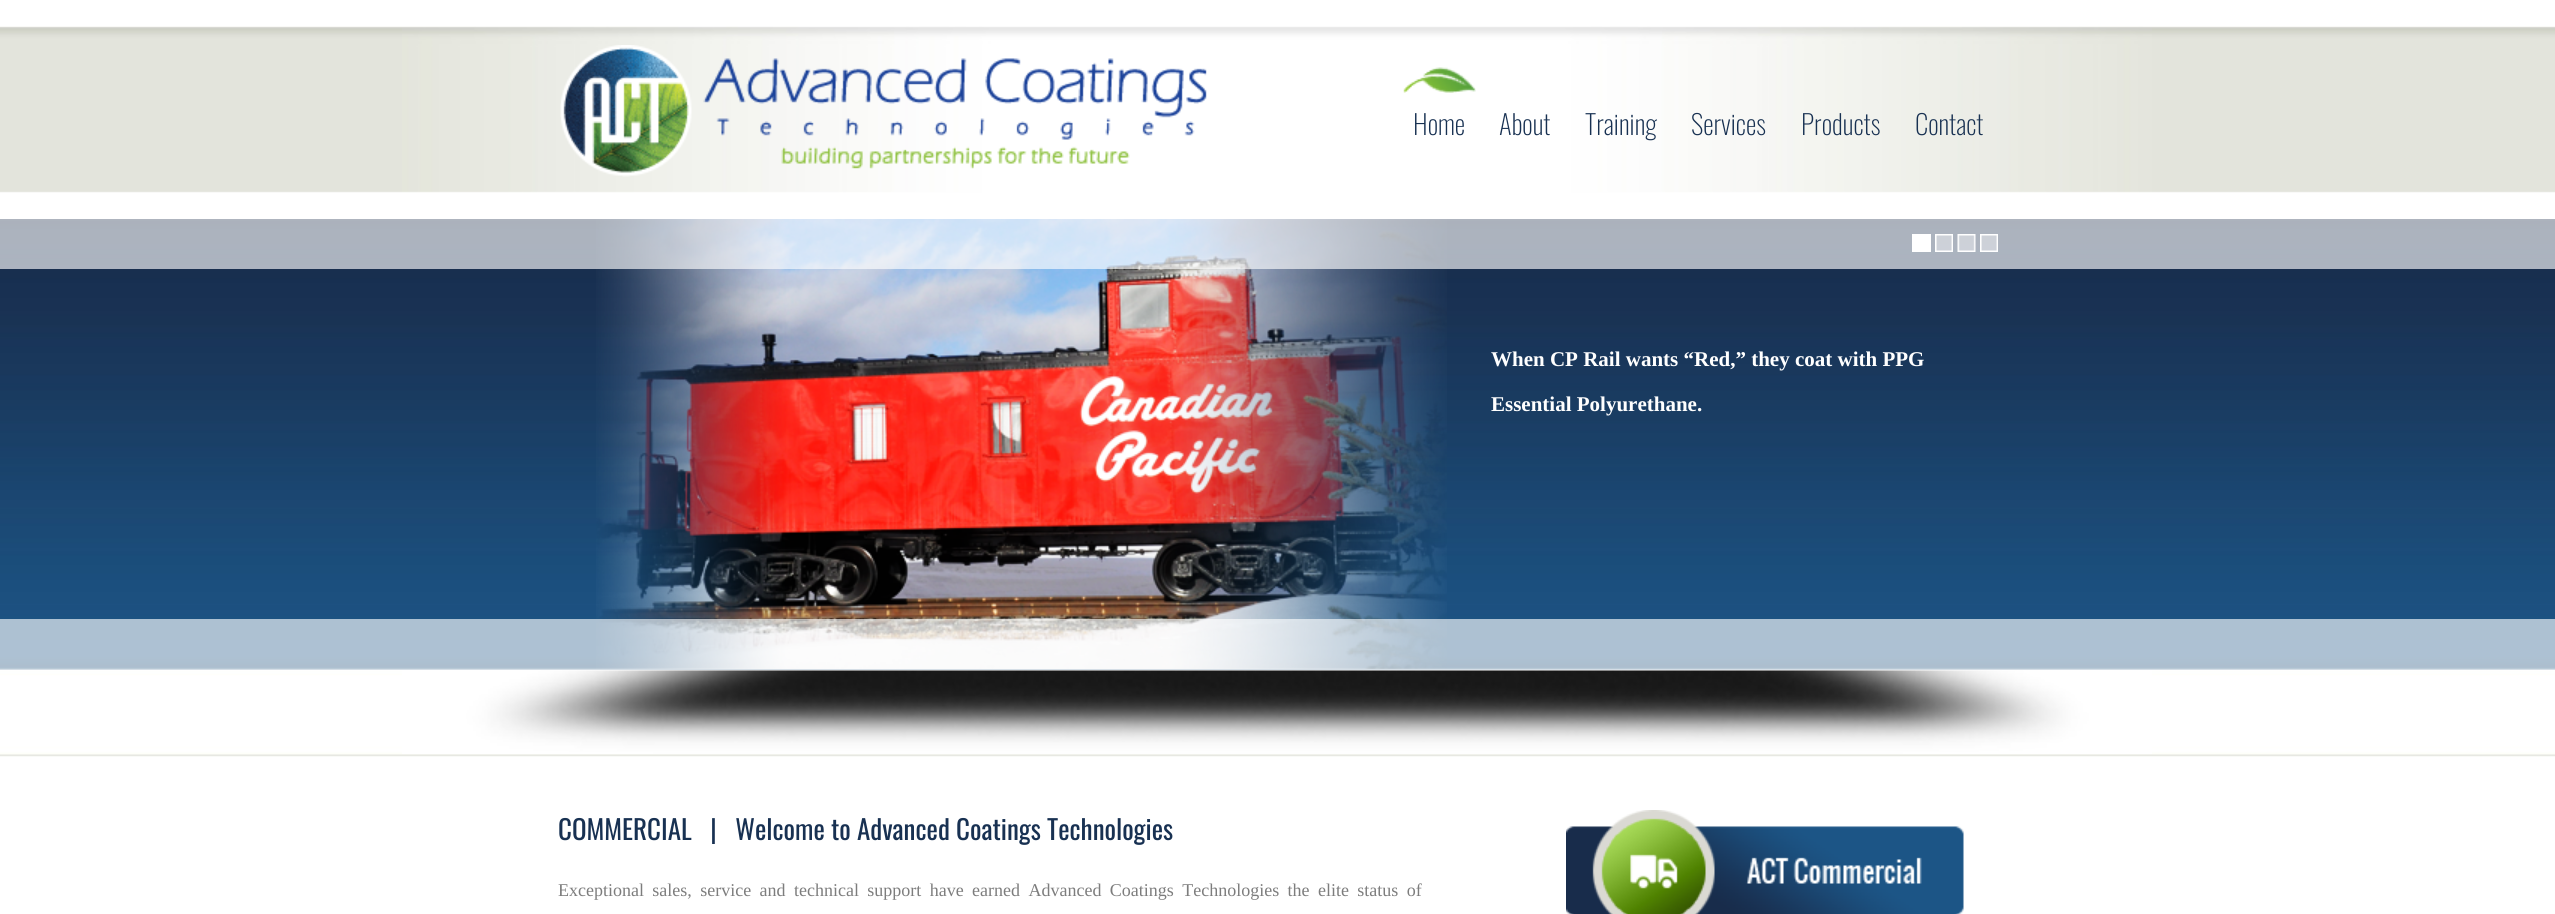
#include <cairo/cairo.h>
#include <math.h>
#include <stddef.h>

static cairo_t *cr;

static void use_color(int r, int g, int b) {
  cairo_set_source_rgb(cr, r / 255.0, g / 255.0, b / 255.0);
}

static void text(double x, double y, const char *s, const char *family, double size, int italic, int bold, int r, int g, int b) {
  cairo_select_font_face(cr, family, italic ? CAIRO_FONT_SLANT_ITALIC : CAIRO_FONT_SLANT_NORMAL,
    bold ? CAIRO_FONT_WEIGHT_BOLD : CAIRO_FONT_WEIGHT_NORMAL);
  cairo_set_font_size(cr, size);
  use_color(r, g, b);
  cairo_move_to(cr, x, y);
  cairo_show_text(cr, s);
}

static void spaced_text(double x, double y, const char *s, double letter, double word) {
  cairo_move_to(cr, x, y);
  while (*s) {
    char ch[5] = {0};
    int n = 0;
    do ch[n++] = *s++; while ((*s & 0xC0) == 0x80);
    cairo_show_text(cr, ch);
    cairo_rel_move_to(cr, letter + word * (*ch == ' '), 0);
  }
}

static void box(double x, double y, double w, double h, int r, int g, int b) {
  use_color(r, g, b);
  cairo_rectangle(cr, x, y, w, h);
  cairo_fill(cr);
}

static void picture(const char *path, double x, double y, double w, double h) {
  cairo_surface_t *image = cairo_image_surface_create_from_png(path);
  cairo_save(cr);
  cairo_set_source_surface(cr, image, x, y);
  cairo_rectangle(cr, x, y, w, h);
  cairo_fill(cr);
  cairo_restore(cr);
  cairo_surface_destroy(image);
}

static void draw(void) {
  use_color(255, 255, 255);
  cairo_paint(cr);
  picture("img_01.png", 0, 26, 2555, 167);
  picture("img_02.png", 402, 26, 1750, 167);
  picture("img_03.png", 560, 45, 647, 132);
  picture("img_04.png", 1403, 67, 73, 26);
  picture("img_05.png", 0, 219, 2555, 538);
  picture("img_09.png", 596, 219, 851, 450);
  cairo_set_source_rgba(cr, 1, 1, 1, 0.64);
  cairo_rectangle(cr, 0, 219, 2555, 50);
  cairo_fill(cr);
  picture("img_06.png", 402, 670, 1750, 84);
  box(1912, 234, 19, 18, 255, 255, 255);
  picture("img_07.png", 1935, 234, 18, 18);
  picture("img_08.png", 1957, 234, 19, 18);
  picture("img_07.png", 1980, 234, 18, 18);
  cairo_set_source_rgba(cr, 1, 1, 1, 0.64);
  cairo_rectangle(cr, 0, 619, 2555, 50);
  cairo_fill(cr);
  picture("img_10.png", 1566, 810, 398, 104);
  text(1413, 135, "Home", "Oswald ExtraLight", 27, 0, 0, 24, 49, 82);
  text(1499, 135, "About", "Oswald ExtraLight", 27, 0, 0, 24, 49, 82);
  text(1585, 135, "Training", "Oswald ExtraLight", 27, 0, 0, 24, 49, 82);
  text(1691, 135, "Services", "Oswald ExtraLight", 27, 0, 0, 24, 49, 82);
  text(1801, 135, "Products", "Oswald ExtraLight", 27, 0, 0, 24, 49, 82);
  text(1915, 135, "Contact", "Oswald ExtraLight", 27, 0, 0, 24, 49, 82);
  text(1491, 366, "When CP Rail wants “Red,” they coat with PPG", "Liberation Serif", 21, 0, 1, 255, 255, 255);
  text(1491, 411, "Essential Polyurethane.", "Liberation Serif", 21, 0, 1, 255, 255, 255);
  text(558, 840, "COMMERCIAL   |   Welcome to Advanced Coatings Technologies", "Oswald", 27, 0, 0, 24, 49, 82);
  cairo_select_font_face(cr, "Liberation Serif", CAIRO_FONT_SLANT_NORMAL, CAIRO_FONT_WEIGHT_NORMAL);
  cairo_set_font_size(cr, 18);
  use_color(125, 125, 125);
  spaced_text(558, 896, "Exceptional sales, service and technical support have earned Advanced Coatings Technologies the elite status of", 0, 3.9);
}

int main(void) {
  cairo_surface_t *surface = cairo_image_surface_create(CAIRO_FORMAT_RGB24, 2555, 914);
  cr = cairo_create(surface);
  cairo_font_options_t *options = cairo_font_options_create();
  cairo_font_options_set_hint_metrics(options, CAIRO_HINT_METRICS_OFF);
  cairo_font_options_set_hint_style(options, CAIRO_HINT_STYLE_NONE);
  cairo_set_font_options(cr, options);
  cairo_set_miter_limit(cr, 4);
  draw();
  cairo_surface_write_to_png(surface, "out.png");
  cairo_font_options_destroy(options);
  cairo_destroy(cr);
  cairo_surface_destroy(surface);
  return 0;
}
